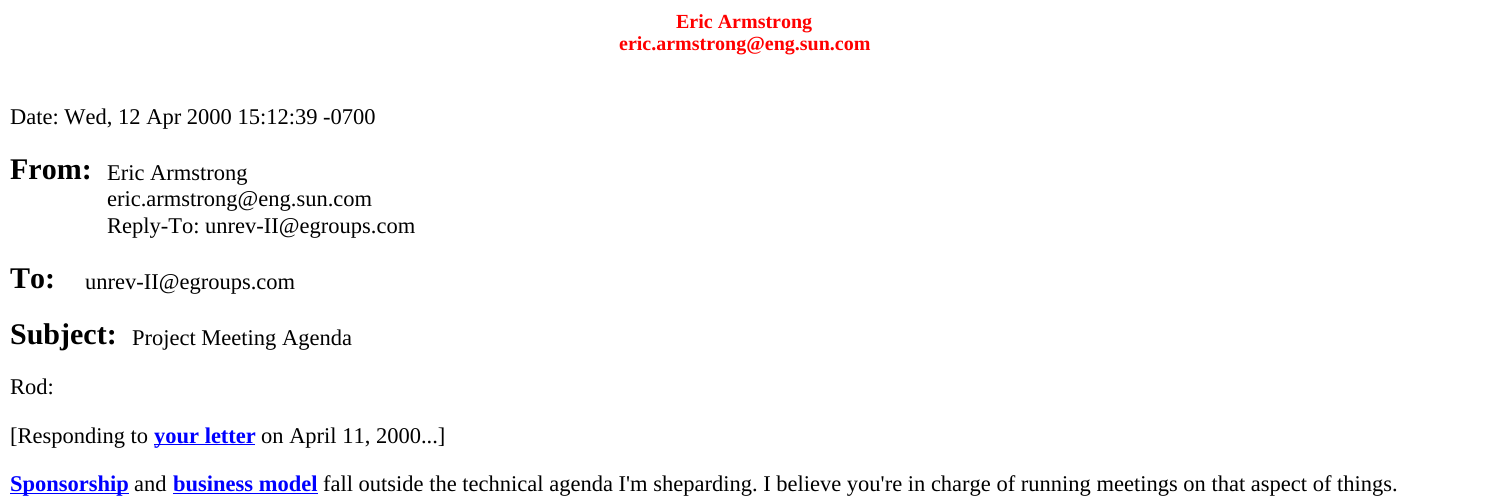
#include <cairo/cairo.h>
#include <math.h>
#include <stddef.h>

static cairo_t *cr;

static void use_color(int r, int g, int b) {
  cairo_set_source_rgb(cr, r / 255.0, g / 255.0, b / 255.0);
}

static void text(double x, double y, const char *s, const char *family, double size, int italic, int bold, int r, int g, int b) {
  cairo_select_font_face(cr, family, italic ? CAIRO_FONT_SLANT_ITALIC : CAIRO_FONT_SLANT_NORMAL,
    bold ? CAIRO_FONT_WEIGHT_BOLD : CAIRO_FONT_WEIGHT_NORMAL);
  cairo_set_font_size(cr, size);
  use_color(r, g, b);
  cairo_move_to(cr, x, y);
  cairo_show_text(cr, s);
}

static void box(double x, double y, double w, double h, int r, int g, int b) {
  use_color(r, g, b);
  cairo_rectangle(cr, x, y, w, h);
  cairo_fill(cr);
}

static void draw(void) {
  use_color(255, 255, 255);
  cairo_paint(cr);
  box(154, 444, 101, 1, 0, 0, 255);
  box(10, 493, 119, 1, 0, 0, 255);
  box(173, 493, 145, 1, 0, 0, 255);
  text(676, 28, "Eric Armstrong", "Liberation Serif", 20, 0, 1, 255, 0, 0);
  text(619, 50, "eric.armstrong@eng.sun.com", "Liberation Serif", 20, 0, 1, 255, 0, 0);
  text(10, 124, "Date: Wed, 12 Apr 2000 15:12:39 -0700", "Liberation Serif", 22.5, 0, 0, 0, 0, 0);
  text(10, 179, "From:", "Liberation Serif", 30, 0, 1, 0, 0, 0);
  text(107, 180, "Eric Armstrong", "Liberation Serif", 22.5, 0, 0, 0, 0, 0);
  text(107, 206, "eric.armstrong@eng.sun.com", "Liberation Serif", 22.5, 0, 0, 0, 0, 0);
  text(107, 233, "Reply-To: unrev-II@egroups.com", "Liberation Serif", 22.5, 0, 0, 0, 0, 0);
  text(10, 288, "To:", "Liberation Serif", 30, 0, 1, 0, 0, 0);
  text(85, 289, "unrev-II@egroups.com", "Liberation Serif", 22.5, 0, 0, 0, 0, 0);
  text(10, 344, "Subject:", "Liberation Serif", 30, 0, 1, 0, 0, 0);
  text(132, 345, "Project Meeting Agenda", "Liberation Serif", 22.5, 0, 0, 0, 0, 0);
  text(10, 394, "Rod:", "Liberation Serif", 22.5, 0, 0, 0, 0, 0);
  text(10, 443, "[Responding to", "Liberation Serif", 22.5, 0, 0, 0, 0, 0);
  text(154, 443, "your letter", "Liberation Serif", 22.5, 0, 1, 0, 0, 255);
  text(261, 443, "on April 11, 2000...]", "Liberation Serif", 22.5, 0, 0, 0, 0, 0);
  text(10, 491, "Sponsorship", "Liberation Serif", 22.5, 0, 1, 0, 0, 255);
  text(134, 491, "and", "Liberation Serif", 22.5, 0, 0, 0, 0, 0);
  text(173, 491, "business model", "Liberation Serif", 22.5, 0, 1, 0, 0, 255);
  text(323, 491, "fall outside the technical agenda I'm sheparding. I believe you're in charge of running meetings on that aspect of things.", "Liberation Serif", 22.5, 0, 0, 0, 0, 0);
}

int main(void) {
  cairo_surface_t *surface = cairo_image_surface_create(CAIRO_FORMAT_RGB24, 1488, 496);
  cr = cairo_create(surface);
  cairo_font_options_t *options = cairo_font_options_create();
  cairo_font_options_set_hint_metrics(options, CAIRO_HINT_METRICS_OFF);
  cairo_font_options_set_hint_style(options, CAIRO_HINT_STYLE_NONE);
  cairo_set_font_options(cr, options);
  cairo_set_miter_limit(cr, 4);
  draw();
  cairo_surface_write_to_png(surface, "out.png");
  cairo_font_options_destroy(options);
  cairo_destroy(cr);
  cairo_surface_destroy(surface);
  return 0;
}
